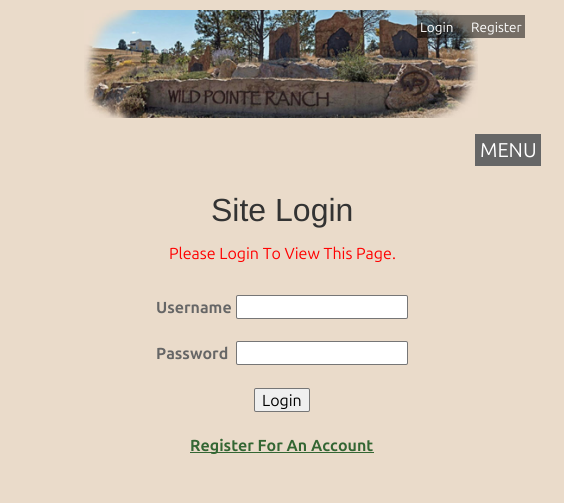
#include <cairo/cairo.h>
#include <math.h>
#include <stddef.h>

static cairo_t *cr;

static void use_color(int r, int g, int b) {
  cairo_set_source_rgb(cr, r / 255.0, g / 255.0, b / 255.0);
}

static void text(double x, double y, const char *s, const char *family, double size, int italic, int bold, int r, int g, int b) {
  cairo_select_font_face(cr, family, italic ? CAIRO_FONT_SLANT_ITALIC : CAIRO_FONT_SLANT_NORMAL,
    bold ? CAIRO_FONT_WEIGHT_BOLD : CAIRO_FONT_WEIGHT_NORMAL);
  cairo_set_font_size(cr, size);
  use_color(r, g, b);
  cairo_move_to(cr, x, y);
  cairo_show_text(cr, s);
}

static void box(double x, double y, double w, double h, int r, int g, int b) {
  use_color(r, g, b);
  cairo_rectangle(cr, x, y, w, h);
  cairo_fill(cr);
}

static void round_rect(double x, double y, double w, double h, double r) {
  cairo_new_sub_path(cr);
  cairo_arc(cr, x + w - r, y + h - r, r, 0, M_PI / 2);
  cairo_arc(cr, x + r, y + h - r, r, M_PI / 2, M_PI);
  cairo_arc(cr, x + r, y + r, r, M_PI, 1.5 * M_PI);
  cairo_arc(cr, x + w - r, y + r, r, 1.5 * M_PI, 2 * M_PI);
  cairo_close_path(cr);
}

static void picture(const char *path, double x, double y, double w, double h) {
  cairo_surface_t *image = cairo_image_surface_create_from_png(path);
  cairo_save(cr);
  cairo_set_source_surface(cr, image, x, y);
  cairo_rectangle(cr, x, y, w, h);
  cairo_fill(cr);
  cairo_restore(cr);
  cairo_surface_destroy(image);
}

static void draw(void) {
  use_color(234, 219, 202);
  cairo_paint(cr);
  picture("img_01.png", 84, 10, 394, 108);
  cairo_set_source_rgba(cr, 0, 0, 0, 0.5);
  cairo_rectangle(cr, 417, 15, 108, 23);
  cairo_fill(cr);
  box(475, 134, 66, 32, 102, 102, 102);
  use_color(255, 255, 255);
  round_rect(236.5, 295.5, 171, 23, 1.5);
  cairo_fill_preserve(cr);
  use_color(118, 118, 118);
  cairo_set_line_width(cr, 1);
  cairo_stroke(cr);
  use_color(255, 255, 255);
  round_rect(236.5, 341.5, 171, 23, 1.5);
  cairo_fill_preserve(cr);
  use_color(118, 118, 118);
  cairo_stroke(cr);
  use_color(239, 239, 239);
  round_rect(254.5, 388.5, 55, 23, 1.5);
  cairo_fill_preserve(cr);
  use_color(118, 118, 118);
  cairo_stroke(cr);
  box(190, 452, 184, 1, 51, 102, 51);
  text(420, 32, "Login", "Ubuntu", 13.5, 0, 0, 255, 255, 255);
  text(471, 32, "Register", "Ubuntu", 13.5, 0, 0, 255, 255, 255);
  text(480, 157, "MENU", "Ubuntu", 20, 0, 0, 255, 255, 255);
  text(211, 221, "Site Login", "Liberation Sans", 32, 0, 0, 51, 51, 51);
  text(169, 259, "Please Login To View This Page.", "Ubuntu", 16, 0, 0, 255, 0, 0);
  text(156, 313, "Username", "Ubuntu", 16, 0, 1, 102, 102, 102);
  text(156, 359, "Password", "Ubuntu", 16, 0, 1, 102, 102, 102);
  text(262, 406, "Login", "Ubuntu", 16, 0, 0, 0, 0, 0);
  text(190, 451, "Register For An Account", "Ubuntu", 16, 0, 1, 51, 102, 51);
}

int main(void) {
  cairo_surface_t *surface = cairo_image_surface_create(CAIRO_FORMAT_RGB24, 564, 503);
  cr = cairo_create(surface);
  cairo_font_options_t *options = cairo_font_options_create();
  cairo_font_options_set_hint_metrics(options, CAIRO_HINT_METRICS_OFF);
  cairo_font_options_set_hint_style(options, CAIRO_HINT_STYLE_NONE);
  cairo_set_font_options(cr, options);
  cairo_set_miter_limit(cr, 4);
  draw();
  cairo_surface_write_to_png(surface, "out.png");
  cairo_font_options_destroy(options);
  cairo_destroy(cr);
  cairo_surface_destroy(surface);
  return 0;
}
